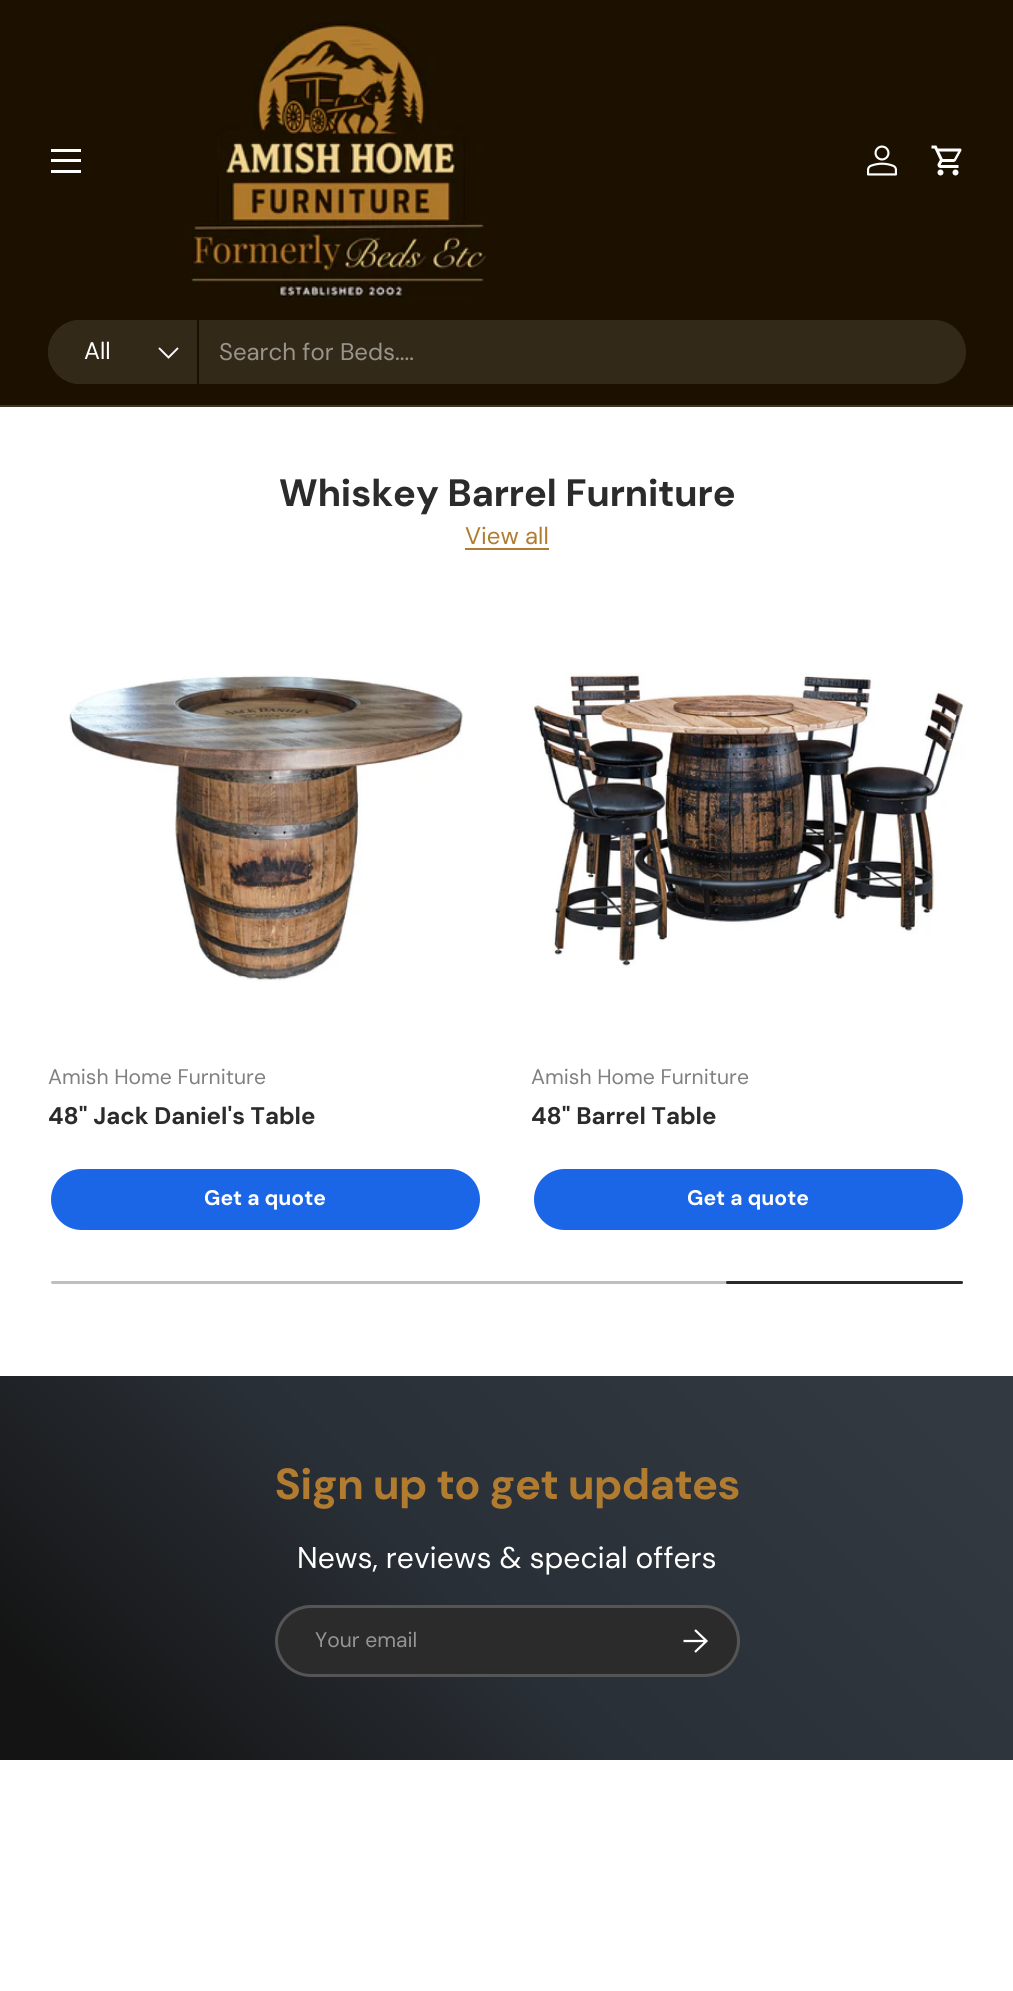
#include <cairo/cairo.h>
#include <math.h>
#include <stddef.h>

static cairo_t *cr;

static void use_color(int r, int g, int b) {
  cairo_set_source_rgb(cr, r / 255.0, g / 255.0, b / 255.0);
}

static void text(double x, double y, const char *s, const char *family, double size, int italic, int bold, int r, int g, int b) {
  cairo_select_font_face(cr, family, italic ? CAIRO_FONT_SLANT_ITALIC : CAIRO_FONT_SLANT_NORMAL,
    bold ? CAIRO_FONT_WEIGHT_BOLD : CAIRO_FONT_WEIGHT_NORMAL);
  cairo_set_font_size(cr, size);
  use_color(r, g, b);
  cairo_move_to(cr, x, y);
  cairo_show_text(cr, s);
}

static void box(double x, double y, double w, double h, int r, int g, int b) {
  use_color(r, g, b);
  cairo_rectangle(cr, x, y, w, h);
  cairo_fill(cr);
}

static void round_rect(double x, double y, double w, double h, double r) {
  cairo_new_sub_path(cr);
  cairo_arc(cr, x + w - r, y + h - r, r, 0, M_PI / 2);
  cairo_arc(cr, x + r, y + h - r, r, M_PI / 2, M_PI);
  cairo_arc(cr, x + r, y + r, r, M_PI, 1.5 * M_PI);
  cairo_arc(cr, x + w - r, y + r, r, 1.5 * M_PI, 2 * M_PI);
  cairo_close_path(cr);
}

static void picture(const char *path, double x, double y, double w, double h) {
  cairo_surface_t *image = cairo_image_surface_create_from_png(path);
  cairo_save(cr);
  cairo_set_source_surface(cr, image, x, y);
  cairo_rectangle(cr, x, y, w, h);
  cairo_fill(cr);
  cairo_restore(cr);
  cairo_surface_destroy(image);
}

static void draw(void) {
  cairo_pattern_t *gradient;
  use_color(255, 255, 255);
  cairo_paint(cr);
  box(0, 0, 1013, 405, 28, 17, 0);
  box(0, 405, 1013, 2, 62, 53, 38);
  box(51, 149, 30, 3, 255, 255, 255);
  box(51, 170, 30, 3, 255, 255, 255);
  box(51, 159, 30, 3, 255, 255, 255);
  picture("img_01.png", 186, 21, 301, 278);
  picture("img_02.png", 867, 145, 30, 31);
  picture("img_03.png", 931, 145, 31, 31);
  use_color(51, 41, 25);
  round_rect(48, 320, 918, 64, 32);
  cairo_fill(cr);
  cairo_new_path(cr);
  cairo_move_to(cr, 80, 320);
  cairo_line_to(cr, 198, 320);
  cairo_line_to(cr, 198, 384);
  cairo_line_to(cr, 80, 384);
  cairo_curve_to(cr, 62.5, 384, 48, 369.5, 48, 352);
  cairo_curve_to(cr, 48, 334.5, 62.5, 320, 80, 320);
  cairo_close_path(cr);
  cairo_fill(cr);
  box(197, 320, 2, 64, 28, 17, 0);
  cairo_new_path(cr);
  cairo_move_to(cr, 178, 348);
  cairo_line_to(cr, 168.5, 357.5);
  cairo_line_to(cr, 159, 348);
  use_color(255, 255, 255);
  cairo_set_line_width(cr, 1.9);
  cairo_stroke(cr);
  box(465, 548, 84, 2, 177, 124, 48);
  picture("img_04.png", 69, 675, 394, 306);
  use_color(27, 102, 231);
  round_rect(49.5, 1167.5, 432, 64, 32);
  cairo_fill_preserve(cr);
  use_color(255, 255, 255);
  cairo_set_line_width(cr, 3);
  cairo_stroke(cr);
  picture("img_05.png", 531, 673, 435, 295);
  use_color(27, 102, 231);
  round_rect(532.5, 1167.5, 432, 64, 32);
  cairo_fill_preserve(cr);
  use_color(255, 255, 255);
  cairo_stroke(cr);
  use_color(191, 191, 191);
  round_rect(51, 1281, 912, 3, 1.5);
  cairo_fill(cr);
  use_color(42, 43, 42);
  round_rect(726, 1281, 237, 3, 1.5);
  cairo_fill(cr);
  gradient = cairo_pattern_create_linear(857, 1218, 158, 1917);
  cairo_pattern_add_color_stop_rgba(gradient, 0.08, 0.196, 0.224, 0.251, 1);
  cairo_pattern_add_color_stop_rgba(gradient, 0.56, 0.161, 0.184, 0.212, 1);
  cairo_pattern_add_color_stop_rgba(gradient, 0.92, 0.078, 0.078, 0.078, 1);
  cairo_set_source(cr, gradient);
  cairo_pattern_destroy(gradient);
  cairo_rectangle(cr, 0, 1376, 1013, 384);
  cairo_fill(cr);
  use_color(42, 43, 42);
  round_rect(275, 1605, 465, 72, 36);
  cairo_fill(cr);
  round_rect(276.5, 1606.5, 462, 69, 34.5);
  cairo_set_source_rgba(cr, 1, 1, 1, 0.2);
  cairo_stroke(cr);
  cairo_new_path(cr);
  cairo_move_to(cr, 683.5, 1641);
  cairo_line_to(cr, 705.5, 1641);
  cairo_move_to(cr, 695, 1630);
  cairo_line_to(cr, 706.5, 1641);
  cairo_line_to(cr, 695, 1652);
  use_color(255, 255, 255);
  cairo_set_line_width(cr, 2.2);
  cairo_stroke(cr);
  text(84, 359, "All", "DM Sans", 24, 0, 0, 255, 255, 255);
  text(219, 360, "Search for Beds....", "DM Sans", 24, 0, 0, 153, 148, 140);
  text(279, 506, "Whiskey Barrel Furniture", "DM Sans", 38.1, 0, 1, 42, 43, 42);
  text(465, 544, "View all", "DM Sans", 24, 0, 0, 177, 124, 48);
  text(48, 1084, "Amish Home Furniture", "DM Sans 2", 21.1, 0, 0, 127, 128, 127);
  text(48, 1124, "48\" Jack Daniel's Table", "DM Sans 2", 24, 0, 1, 42, 43, 42);
  text(204, 1205, "Get a quote", "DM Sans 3", 21.1, 0, 1, 255, 255, 255);
  text(531, 1084, "Amish Home Furniture", "DM Sans 2", 21.1, 0, 0, 127, 128, 127);
  text(531, 1124, "48\" Barrel Table", "DM Sans 2", 24, 0, 1, 42, 43, 42);
  text(687, 1205, "Get a quote", "DM Sans 3", 21.1, 0, 1, 255, 255, 255);
  text(275, 1499, "Sign up to get updates", "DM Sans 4", 43.4, 0, 1, 177, 124, 48);
  text(297, 1568, "News, reviews & special offers", "DM Sans 3", 30, 0, 0, 255, 255, 255);
  text(315, 1647, "Your email", "DM Sans 2", 21.1, 0, 0, 149, 149, 149);
}

int main(void) {
  cairo_surface_t *surface = cairo_image_surface_create(CAIRO_FORMAT_RGB24, 1013, 1991);
  cr = cairo_create(surface);
  cairo_font_options_t *options = cairo_font_options_create();
  cairo_font_options_set_hint_metrics(options, CAIRO_HINT_METRICS_OFF);
  cairo_font_options_set_hint_style(options, CAIRO_HINT_STYLE_NONE);
  cairo_set_font_options(cr, options);
  cairo_set_miter_limit(cr, 4);
  draw();
  cairo_surface_write_to_png(surface, "out.png");
  cairo_font_options_destroy(options);
  cairo_destroy(cr);
  cairo_surface_destroy(surface);
  return 0;
}
